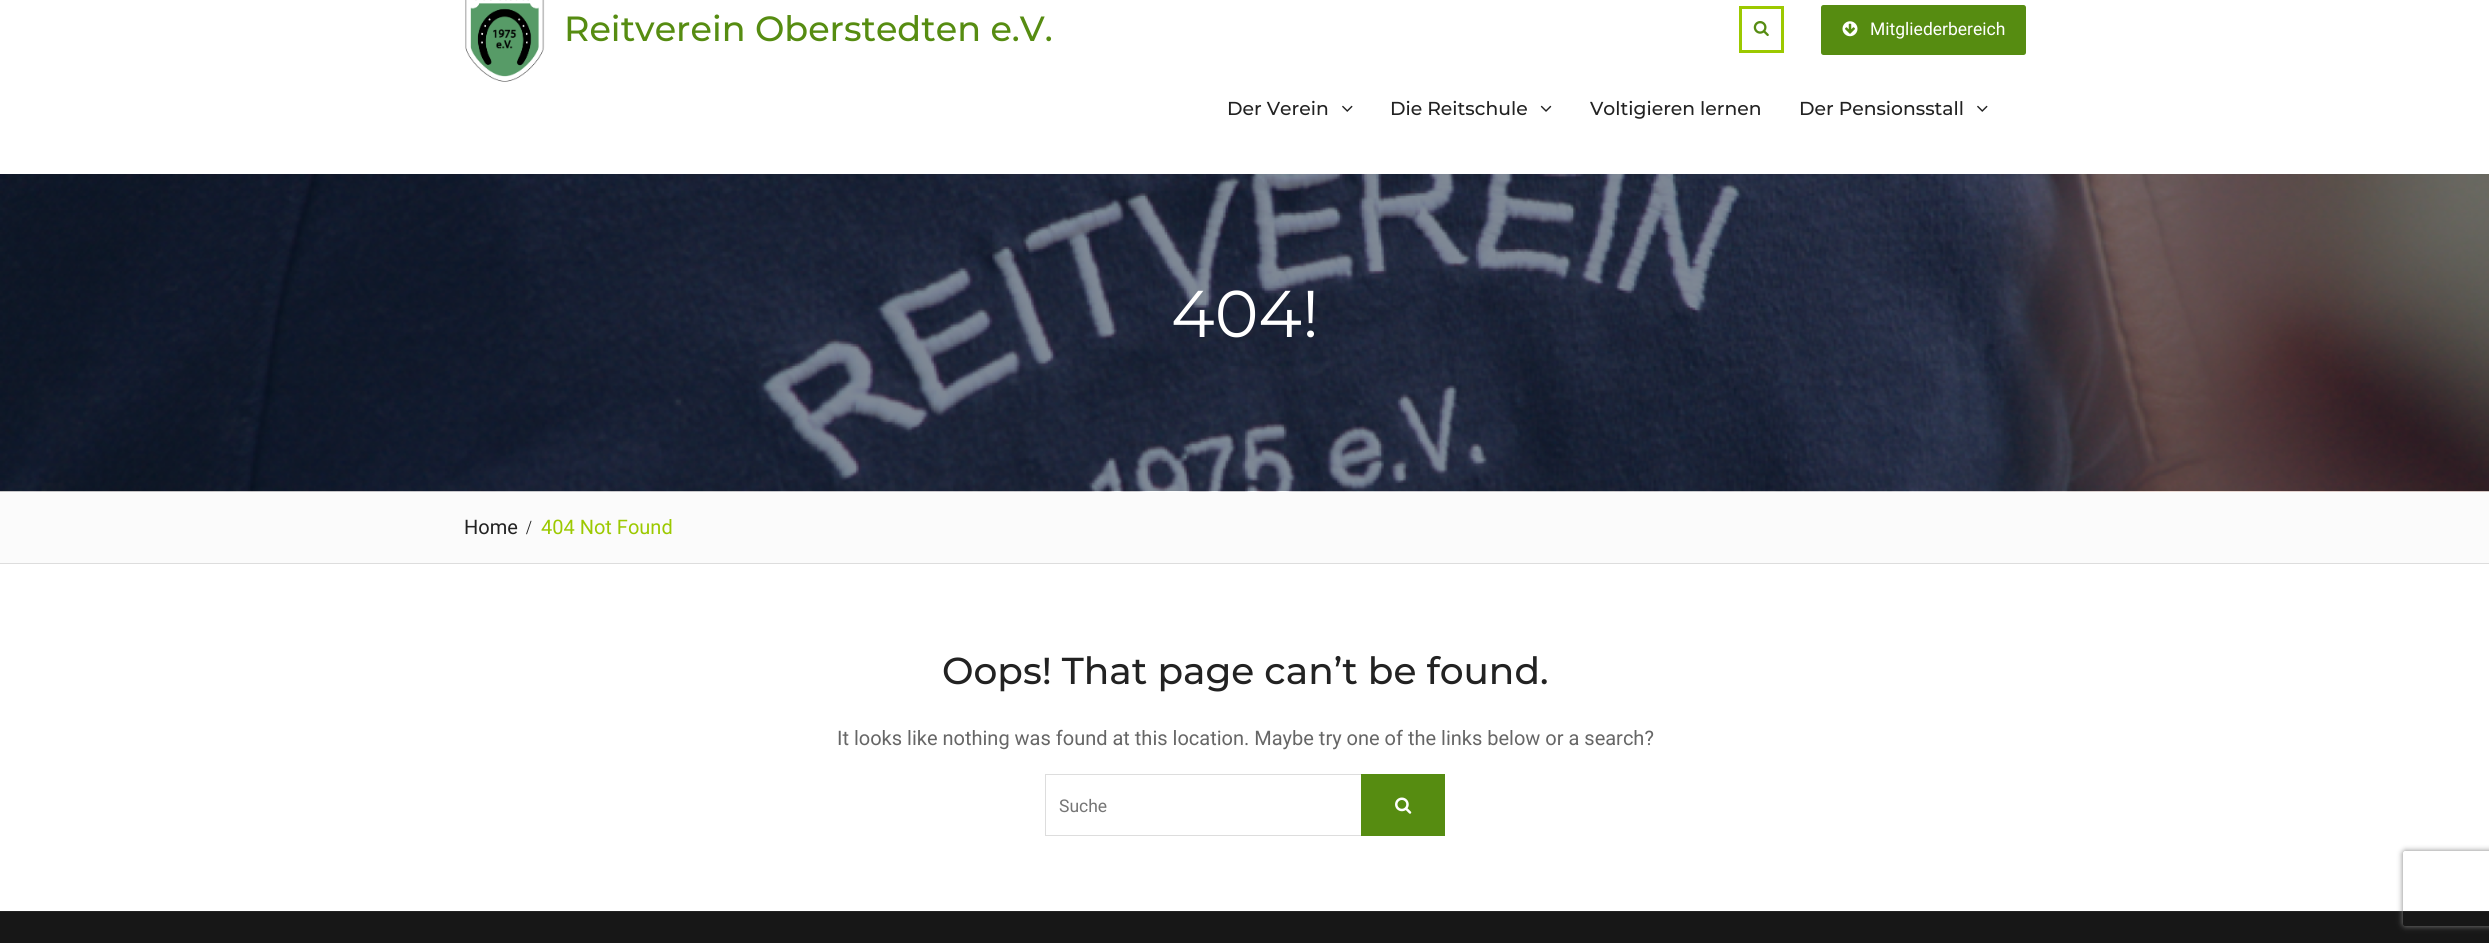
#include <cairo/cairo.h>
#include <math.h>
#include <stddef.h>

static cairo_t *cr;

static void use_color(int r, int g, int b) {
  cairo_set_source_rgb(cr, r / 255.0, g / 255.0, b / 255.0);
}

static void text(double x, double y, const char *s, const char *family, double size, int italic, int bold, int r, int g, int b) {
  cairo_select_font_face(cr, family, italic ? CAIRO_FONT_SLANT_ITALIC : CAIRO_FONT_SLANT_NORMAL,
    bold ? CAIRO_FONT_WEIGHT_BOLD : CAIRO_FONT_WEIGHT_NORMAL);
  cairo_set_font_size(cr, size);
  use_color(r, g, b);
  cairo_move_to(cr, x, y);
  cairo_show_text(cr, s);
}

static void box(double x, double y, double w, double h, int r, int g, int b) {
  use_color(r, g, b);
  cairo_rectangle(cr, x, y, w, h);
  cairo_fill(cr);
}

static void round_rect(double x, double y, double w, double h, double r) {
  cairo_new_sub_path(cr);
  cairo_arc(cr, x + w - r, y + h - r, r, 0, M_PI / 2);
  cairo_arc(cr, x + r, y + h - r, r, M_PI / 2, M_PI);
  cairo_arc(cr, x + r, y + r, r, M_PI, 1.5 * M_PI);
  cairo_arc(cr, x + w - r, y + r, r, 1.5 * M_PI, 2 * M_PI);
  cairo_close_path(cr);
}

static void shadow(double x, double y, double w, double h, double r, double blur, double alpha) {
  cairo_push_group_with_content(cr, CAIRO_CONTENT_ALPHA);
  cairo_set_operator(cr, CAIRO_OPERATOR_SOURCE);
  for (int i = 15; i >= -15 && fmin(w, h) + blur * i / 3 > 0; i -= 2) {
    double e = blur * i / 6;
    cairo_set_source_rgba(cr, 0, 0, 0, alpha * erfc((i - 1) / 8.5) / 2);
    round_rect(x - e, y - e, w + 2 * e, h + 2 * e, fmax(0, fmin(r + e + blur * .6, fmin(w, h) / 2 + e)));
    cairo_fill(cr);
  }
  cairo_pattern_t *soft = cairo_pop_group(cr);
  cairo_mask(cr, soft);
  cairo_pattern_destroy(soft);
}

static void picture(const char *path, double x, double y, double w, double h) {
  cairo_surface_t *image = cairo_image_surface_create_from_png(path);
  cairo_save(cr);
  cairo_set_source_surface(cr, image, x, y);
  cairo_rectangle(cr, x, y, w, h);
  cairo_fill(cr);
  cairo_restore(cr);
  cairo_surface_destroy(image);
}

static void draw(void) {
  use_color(255, 255, 255);
  cairo_paint(cr);
  picture("img_01.png", 465, 0, 80, 82);
  cairo_rectangle(cr, 1740.5, 7.5, 42, 44);
  use_color(156, 201, 0);
  cairo_set_line_width(cr, 3);
  cairo_stroke(cr);
  picture("img_02.png", 1753, 21, 16, 16);
  use_color(86, 140, 17);
  round_rect(1821, 5, 205, 50, 2.5);
  cairo_fill(cr);
  picture("img_03.png", 1842, 21, 16, 16);
  picture("img_04.png", 1342, 105, 11, 7);
  picture("img_05.png", 1540, 105, 12, 7);
  picture("img_04.png", 1977, 105, 11, 7);
  box(0, 491, 2489, 72, 251, 251, 251);
  picture("img_06.png", 0, 174, 2489, 318);
  box(0, 563, 2489, 1, 221, 221, 221);
  cairo_rectangle(cr, 1045.5, 774.5, 399, 61);
  cairo_set_line_width(cr, 1);
  cairo_stroke(cr);
  box(1361, 774, 84, 62, 86, 140, 17);
  picture("img_07.png", 1395, 797, 17, 17);
  box(0, 912, 2489, 31, 23, 23, 23);
  box(0, 911, 2489, 1, 34, 34, 34);
  cairo_save(cr);
  cairo_set_fill_rule(cr, CAIRO_FILL_RULE_EVEN_ODD);
  cairo_new_path(cr);
  cairo_move_to(cr, 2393, 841);
  cairo_line_to(cr, 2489, 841);
  cairo_line_to(cr, 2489, 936);
  cairo_line_to(cr, 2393, 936);
  cairo_close_path(cr);
  cairo_move_to(cr, 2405.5, 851);
  cairo_line_to(cr, 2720.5, 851);
  cairo_curve_to(cr, 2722, 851, 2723, 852, 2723, 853.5);
  cairo_line_to(cr, 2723, 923.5);
  cairo_curve_to(cr, 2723, 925, 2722, 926, 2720.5, 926);
  cairo_line_to(cr, 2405.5, 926);
  cairo_curve_to(cr, 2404, 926, 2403, 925, 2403, 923.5);
  cairo_line_to(cr, 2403, 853.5);
  cairo_curve_to(cr, 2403, 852, 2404, 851, 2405.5, 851);
  cairo_close_path(cr);
  cairo_clip(cr);
  use_color(128, 128, 128);
  shadow(2403, 851, 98, 75, 2.5, 3, 1);
  cairo_restore(cr);
  text(564, 41, "Reitverein Oberstedten e.V.", "Montserrat Medium", 35, 0, 0, 86, 140, 17);
  text(1870, 35, "Mitgliederbereich", "Roboto", 17.5, 0, 0, 255, 255, 255);
  text(1227, 115, "Der Verein", "Montserrat Medium", 18.75, 0, 0, 34, 34, 34);
  text(1390, 115, "Die Reitschule", "Montserrat Medium", 18.75, 0, 0, 34, 34, 34);
  text(1590, 115, "Voltigieren lernen", "Montserrat Medium", 18.75, 0, 0, 34, 34, 34);
  text(1799, 115, "Der Pensionsstall", "Montserrat Medium", 18.75, 0, 0, 34, 34, 34);
  text(1171, 337, "404!", "Montserrat", 66, 0, 0, 255, 255, 255);
  text(464, 534, "Home", "Roboto", 20, 0, 0, 34, 34, 34);
  text(526, 534, "/", "Liberation Serif", 20, 0, 0, 34, 34, 34);
  text(541, 534, "404 Not Found", "Roboto", 20, 0, 0, 156, 201, 0);
  text(942, 684, "Oops! That page can’t be found.", "Montserrat Medium", 37.5, 0, 0, 34, 34, 34);
  text(837, 745, "It looks like nothing was found at this location. Maybe try one of the links below or a search?", "Roboto", 20, 0, 0, 102, 102, 102);
  text(1059, 812, "Suche", "Roboto", 17.5, 0, 0, 117, 117, 117);
}

int main(void) {
  cairo_surface_t *surface = cairo_image_surface_create(CAIRO_FORMAT_RGB24, 2489, 943);
  cr = cairo_create(surface);
  cairo_font_options_t *options = cairo_font_options_create();
  cairo_font_options_set_hint_metrics(options, CAIRO_HINT_METRICS_OFF);
  cairo_font_options_set_hint_style(options, CAIRO_HINT_STYLE_NONE);
  cairo_set_font_options(cr, options);
  cairo_set_miter_limit(cr, 4);
  draw();
  cairo_surface_write_to_png(surface, "out.png");
  cairo_font_options_destroy(options);
  cairo_destroy(cr);
  cairo_surface_destroy(surface);
  return 0;
}
